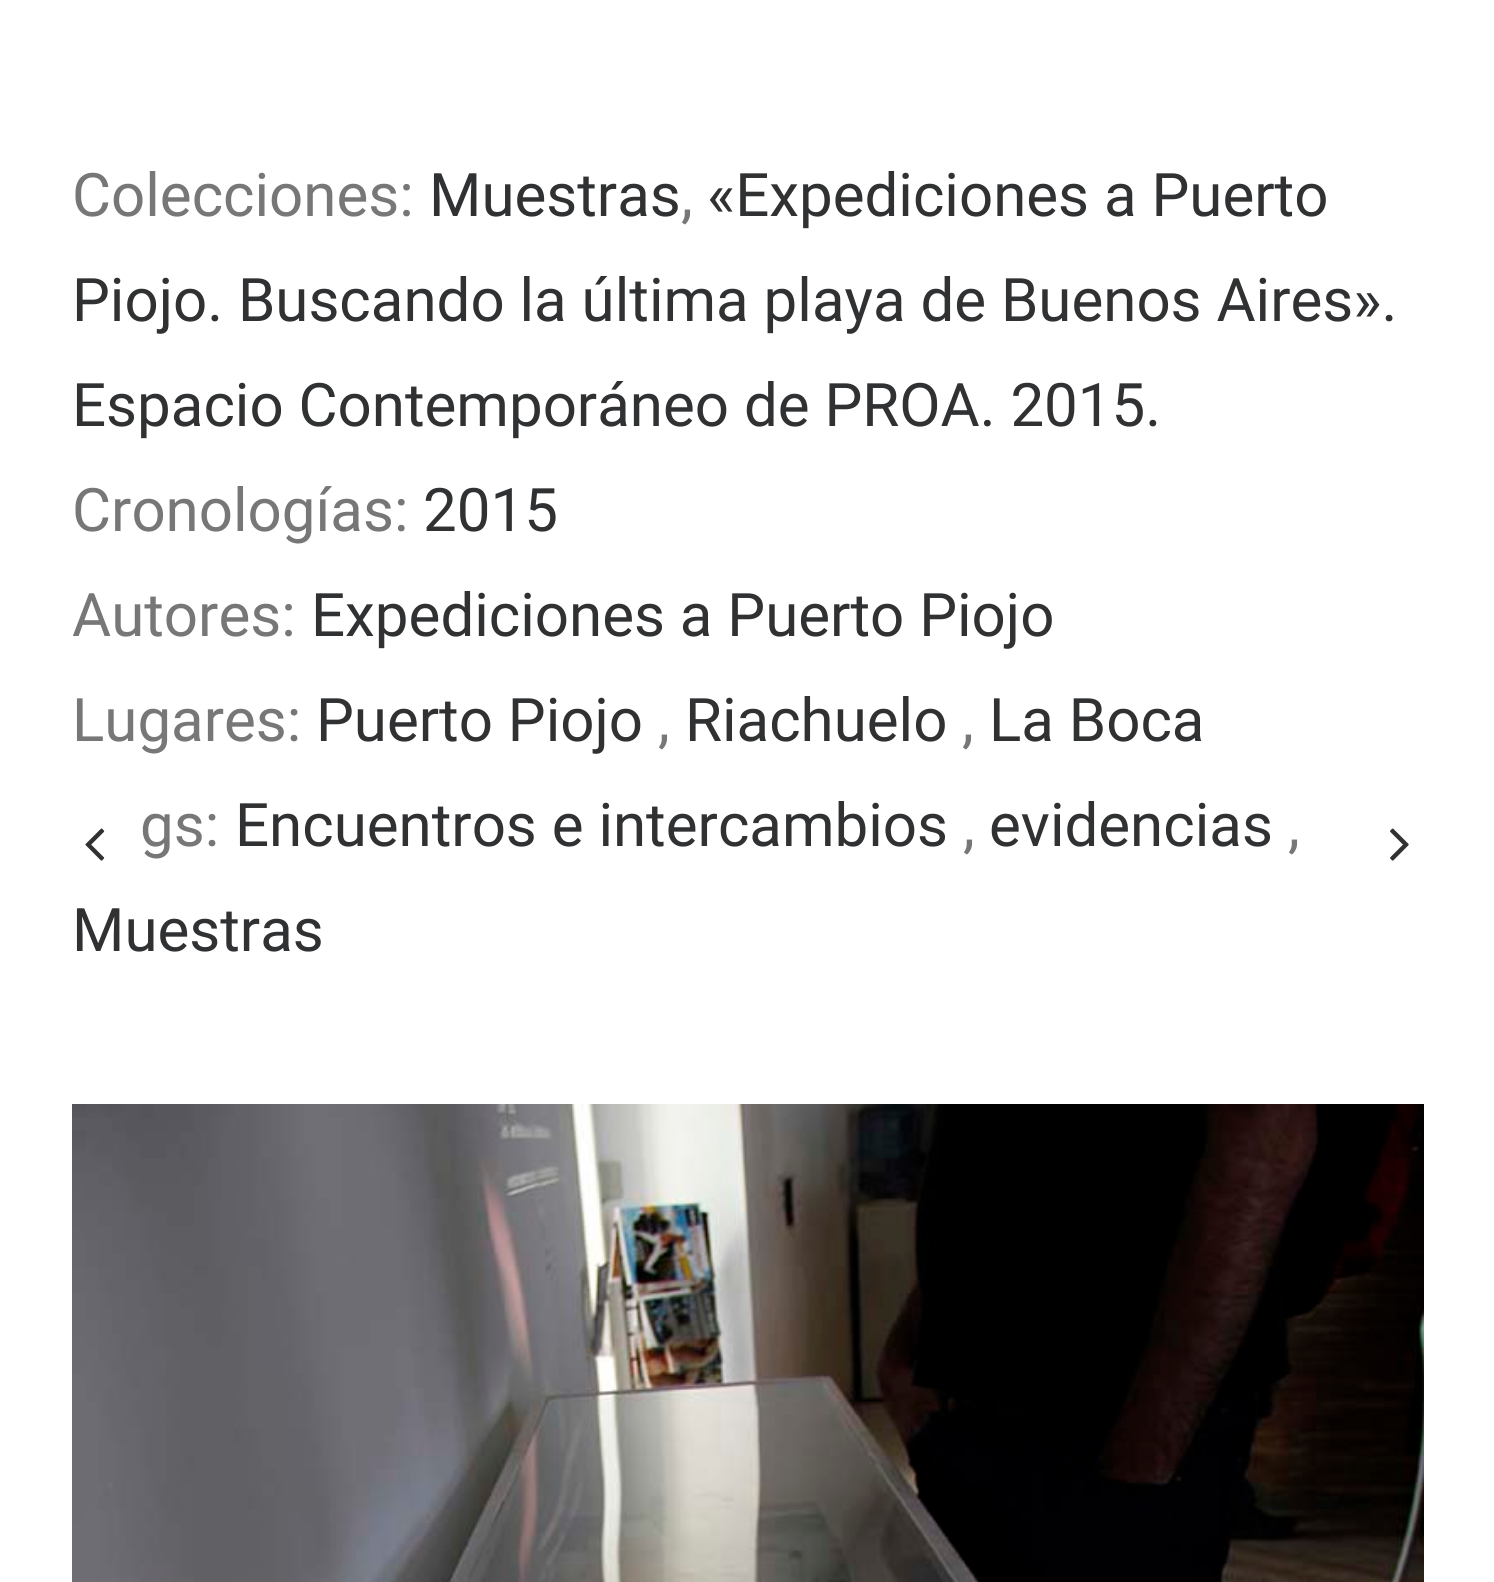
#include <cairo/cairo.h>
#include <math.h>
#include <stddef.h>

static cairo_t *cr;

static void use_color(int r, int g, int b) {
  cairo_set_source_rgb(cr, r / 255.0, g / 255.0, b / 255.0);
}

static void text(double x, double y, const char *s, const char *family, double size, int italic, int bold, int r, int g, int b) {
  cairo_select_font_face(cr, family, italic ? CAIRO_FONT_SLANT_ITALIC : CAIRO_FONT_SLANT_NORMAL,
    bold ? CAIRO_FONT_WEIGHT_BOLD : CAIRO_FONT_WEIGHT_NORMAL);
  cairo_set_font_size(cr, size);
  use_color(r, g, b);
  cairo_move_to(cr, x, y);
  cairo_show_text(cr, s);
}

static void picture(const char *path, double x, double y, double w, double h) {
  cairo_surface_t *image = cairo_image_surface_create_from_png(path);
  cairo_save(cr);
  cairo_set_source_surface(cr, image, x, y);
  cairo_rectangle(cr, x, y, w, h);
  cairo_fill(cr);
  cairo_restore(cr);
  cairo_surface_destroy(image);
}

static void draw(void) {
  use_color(255, 255, 255);
  cairo_paint(cr);
  picture("img_01.png", 72, 1104, 1352, 478);
  picture("img_02.png", 85, 828, 20, 33);
  picture("img_03.png", 1390, 828, 19, 33);
  text(72, 216, "Colecciones:", "Roboto", 60, 0, 0, 119, 119, 119);
  text(429, 216, "Muestras", "Roboto", 60, 0, 0, 48, 49, 51);
  text(681, 216, ",", "Roboto", 60, 0, 0, 119, 119, 119);
  text(707, 216, "«Expediciones a Puerto", "Roboto", 60, 0, 0, 48, 49, 51);
  text(72, 321, "Piojo. Buscando la última playa de Buenos Aires».", "Roboto", 60, 0, 0, 48, 49, 51);
  text(72, 426, "Espacio Contemporáneo de PROA. 2015.", "Roboto", 60, 0, 0, 48, 49, 51);
  text(72, 531, "Cronologías:", "Roboto", 60, 0, 0, 119, 119, 119);
  text(423, 531, "2015", "Roboto", 60, 0, 0, 48, 49, 51);
  text(72, 636, "Autores:", "Roboto", 60, 0, 0, 119, 119, 119);
  text(311, 636, "Expediciones a Puerto Piojo", "Roboto", 60, 0, 0, 48, 49, 51);
  text(72, 741, "Lugares:", "Roboto", 60, 0, 0, 119, 119, 119);
  text(316, 741, "Puerto Piojo", "Roboto", 60, 0, 0, 48, 49, 51);
  text(658, 741, ",", "Roboto", 60, 0, 0, 119, 119, 119);
  text(685, 741, "Riachuelo", "Roboto", 60, 0, 0, 48, 49, 51);
  text(962, 741, ",", "Roboto", 60, 0, 0, 119, 119, 119);
  text(989, 741, "La Boca", "Roboto", 60, 0, 0, 48, 49, 51);
  text(140, 846, "gs:", "Roboto", 60, 0, 0, 119, 119, 119);
  text(235, 846, "Encuentros e intercambios", "Roboto", 60, 0, 0, 48, 49, 51);
  text(963, 846, ",", "Roboto", 60, 0, 0, 119, 119, 119);
  text(989, 846, "evidencias", "Roboto", 60, 0, 0, 48, 49, 51);
  text(1288, 846, ",", "Roboto", 60, 0, 0, 119, 119, 119);
  text(72, 951, "Muestras", "Roboto", 60, 0, 0, 48, 49, 51);
}

int main(void) {
  cairo_surface_t *surface = cairo_image_surface_create(CAIRO_FORMAT_RGB24, 1494, 1582);
  cr = cairo_create(surface);
  cairo_font_options_t *options = cairo_font_options_create();
  cairo_font_options_set_hint_metrics(options, CAIRO_HINT_METRICS_OFF);
  cairo_font_options_set_hint_style(options, CAIRO_HINT_STYLE_NONE);
  cairo_set_font_options(cr, options);
  cairo_set_miter_limit(cr, 4);
  draw();
  cairo_surface_write_to_png(surface, "out.png");
  cairo_font_options_destroy(options);
  cairo_destroy(cr);
  cairo_surface_destroy(surface);
  return 0;
}
